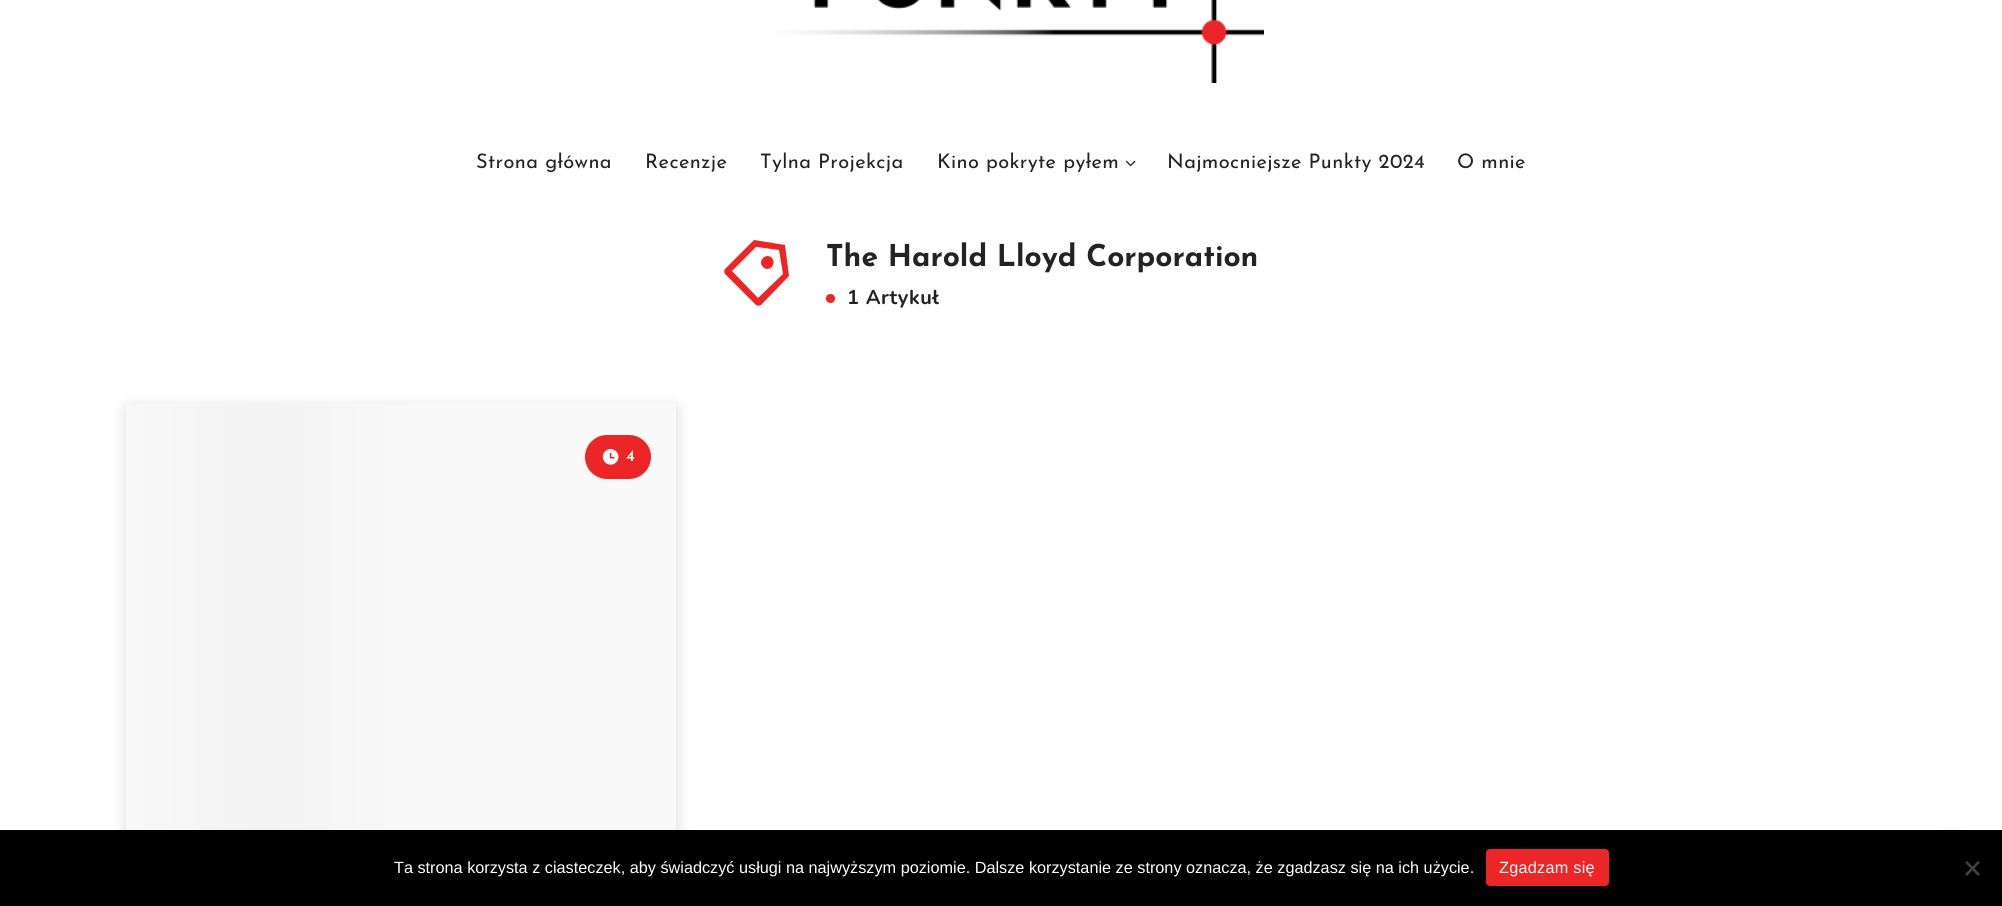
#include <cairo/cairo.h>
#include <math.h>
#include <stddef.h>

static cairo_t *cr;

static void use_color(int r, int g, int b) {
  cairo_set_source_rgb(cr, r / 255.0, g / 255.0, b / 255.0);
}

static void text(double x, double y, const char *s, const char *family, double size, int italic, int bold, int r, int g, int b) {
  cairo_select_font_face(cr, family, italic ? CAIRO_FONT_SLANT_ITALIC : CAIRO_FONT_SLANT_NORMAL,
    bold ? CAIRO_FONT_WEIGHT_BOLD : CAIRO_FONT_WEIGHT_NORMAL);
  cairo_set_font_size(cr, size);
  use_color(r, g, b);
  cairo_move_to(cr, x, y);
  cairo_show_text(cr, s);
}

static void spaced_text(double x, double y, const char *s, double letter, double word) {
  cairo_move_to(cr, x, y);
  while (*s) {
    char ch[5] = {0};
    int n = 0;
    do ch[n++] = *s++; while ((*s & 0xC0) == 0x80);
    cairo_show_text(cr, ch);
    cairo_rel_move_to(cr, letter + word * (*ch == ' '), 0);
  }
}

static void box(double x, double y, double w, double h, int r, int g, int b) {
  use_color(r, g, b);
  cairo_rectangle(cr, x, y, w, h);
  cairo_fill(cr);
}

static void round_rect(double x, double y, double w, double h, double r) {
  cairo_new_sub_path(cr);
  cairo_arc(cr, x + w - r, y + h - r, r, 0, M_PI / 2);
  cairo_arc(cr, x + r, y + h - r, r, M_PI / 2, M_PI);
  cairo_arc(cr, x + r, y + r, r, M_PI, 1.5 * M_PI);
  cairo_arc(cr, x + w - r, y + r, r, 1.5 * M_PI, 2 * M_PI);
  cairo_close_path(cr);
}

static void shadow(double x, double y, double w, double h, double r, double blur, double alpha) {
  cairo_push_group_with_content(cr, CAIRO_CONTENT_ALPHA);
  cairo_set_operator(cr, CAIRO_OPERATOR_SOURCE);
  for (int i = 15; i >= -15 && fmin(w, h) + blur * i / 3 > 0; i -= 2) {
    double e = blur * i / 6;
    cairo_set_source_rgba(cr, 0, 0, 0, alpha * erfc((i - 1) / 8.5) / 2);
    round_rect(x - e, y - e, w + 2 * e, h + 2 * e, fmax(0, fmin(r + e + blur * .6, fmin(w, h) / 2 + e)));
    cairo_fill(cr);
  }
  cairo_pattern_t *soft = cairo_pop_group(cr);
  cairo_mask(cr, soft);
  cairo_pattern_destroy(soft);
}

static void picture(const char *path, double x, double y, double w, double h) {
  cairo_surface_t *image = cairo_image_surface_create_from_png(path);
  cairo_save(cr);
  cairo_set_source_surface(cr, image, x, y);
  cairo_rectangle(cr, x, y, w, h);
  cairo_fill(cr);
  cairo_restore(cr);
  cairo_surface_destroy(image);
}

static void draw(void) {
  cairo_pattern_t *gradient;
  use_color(255, 255, 255);
  cairo_paint(cr);
  picture("img_01.png", 779, 0, 485, 83);
  picture("img_02.png", 1125, 160, 11, 7);
  use_color(236, 37, 38);
  cairo_new_path(cr);
  cairo_move_to(cr, 754, 240);
  cairo_line_to(cr, 785, 245);
  cairo_line_to(cr, 789, 276);
  cairo_line_to(cr, 761, 305);
  cairo_curve_to(cr, 759, 306, 757, 306, 756, 305);
  cairo_line_to(cr, 725, 274);
  cairo_curve_to(cr, 724, 272, 724, 270, 725, 269);
  cairo_close_path(cr);
  cairo_move_to(cr, 756, 247);
  cairo_line_to(cr, 732, 271);
  cairo_line_to(cr, 758, 298);
  cairo_line_to(cr, 783, 274);
  cairo_line_to(cr, 779, 250);
  cairo_close_path(cr);
  cairo_move_to(cr, 763, 267);
  cairo_curve_to(cr, 757, 261, 766, 252, 772, 258);
  cairo_curve_to(cr, 777, 264, 769, 273, 763, 267);
  cairo_close_path(cr);
  cairo_fill(cr);
  cairo_arc(cr, 830.5, 298.5, 4.5, 0, 2 * M_PI);
  cairo_fill(cr);
  use_color(7, 10, 25);
  shadow(128, 409, 547, 497, 0, 7.5, 0.2);
  gradient = cairo_pattern_create_linear(126, 654, 401, 654);
  cairo_pattern_add_color_stop_rgba(gradient, 0, 0.973, 0.973, 0.973, 1);
  cairo_pattern_add_color_stop_rgba(gradient, 0.5, 0.953, 0.953, 0.953, 1);
  cairo_pattern_add_color_stop_rgba(gradient, 1, 0.973, 0.973, 0.973, 1);
  cairo_set_source(cr, gradient);
  cairo_pattern_destroy(gradient);
  cairo_rectangle(cr, 126, 404, 275, 426);
  cairo_fill(cr);
  box(401, 404, 275, 426, 249, 249, 249);
  use_color(236, 37, 38);
  round_rect(585, 435, 66, 44, 22);
  cairo_fill(cr);
  picture("img_03.png", 602, 449, 17, 16);
  use_color(0, 0, 0);
  shadow(1928, 835, 50, 50, 25, 4, 0.3);
  box(0, 830, 2002, 76, 0, 0, 0);
  use_color(236, 37, 38);
  round_rect(1486, 849, 123, 37, 4);
  cairo_fill(cr);
  use_color(64, 64, 64);
  cairo_new_path(cr);
  cairo_move_to(cr, 1978, 861);
  cairo_line_to(cr, 1980, 862.5);
  cairo_line_to(cr, 1967, 876);
  cairo_line_to(cr, 1965, 874);
  cairo_close_path(cr);
  cairo_fill(cr);
  cairo_new_path(cr);
  cairo_move_to(cr, 1965, 862.5);
  cairo_line_to(cr, 1967, 861);
  cairo_line_to(cr, 1980, 874);
  cairo_line_to(cr, 1978, 876);
  cairo_close_path(cr);
  cairo_fill(cr);
  cairo_select_font_face(cr, "Josefin Sans", CAIRO_FONT_SLANT_NORMAL, CAIRO_FONT_WEIGHT_NORMAL);
  cairo_set_font_size(cr, 20);
  use_color(36, 35, 35);
  spaced_text(476, 168, "Strona główna", 0.4, 0);
  spaced_text(645, 168, "Recenzje", 0.4, 0);
  spaced_text(760, 168, "Tylna Projekcja", 0.4, 0);
  spaced_text(937, 168, "Kino pokryte pyłem", 0.4, 0);
  spaced_text(1167, 168, "Najmocniejsze Punkty 2024", 0.4, 0);
  spaced_text(1457, 168, "O mnie", 0.4, 0);
  text(826, 266, "The Harold Lloyd Corporation", "Josefin Sans", 30, 0, 1, 36, 35, 35);
  cairo_select_font_face(cr, "Nunito", CAIRO_FONT_SLANT_NORMAL, CAIRO_FONT_WEIGHT_BOLD);
  cairo_set_font_size(cr, 20);
  spaced_text(847, 304, "1 Artykuł", 0.6, 0);
  cairo_select_font_face(cr, "Josefin Sans SemiBold", CAIRO_FONT_SLANT_NORMAL, CAIRO_FONT_WEIGHT_NORMAL);
  cairo_set_font_size(cr, 16.25);
  use_color(255, 255, 255);
  spaced_text(626, 461, "4", 0.6, 0);
  text(394, 873, "Ta strona korzysta z ciasteczek, aby świadczyć usługi na najwyższym poziomie. Dalsze korzystanie ze strony oznacza, że zgadzasz się na ich użycie.", "Liberation Sans", 16.25, 0, 0, 255, 255, 255);
  spaced_text(1499, 873, "Zgadzam się", 0.25, 0);
}

int main(void) {
  cairo_surface_t *surface = cairo_image_surface_create(CAIRO_FORMAT_RGB24, 2002, 906);
  cr = cairo_create(surface);
  cairo_font_options_t *options = cairo_font_options_create();
  cairo_font_options_set_hint_metrics(options, CAIRO_HINT_METRICS_OFF);
  cairo_font_options_set_hint_style(options, CAIRO_HINT_STYLE_NONE);
  cairo_set_font_options(cr, options);
  cairo_set_miter_limit(cr, 4);
  draw();
  cairo_surface_write_to_png(surface, "out.png");
  cairo_font_options_destroy(options);
  cairo_destroy(cr);
  cairo_surface_destroy(surface);
  return 0;
}
